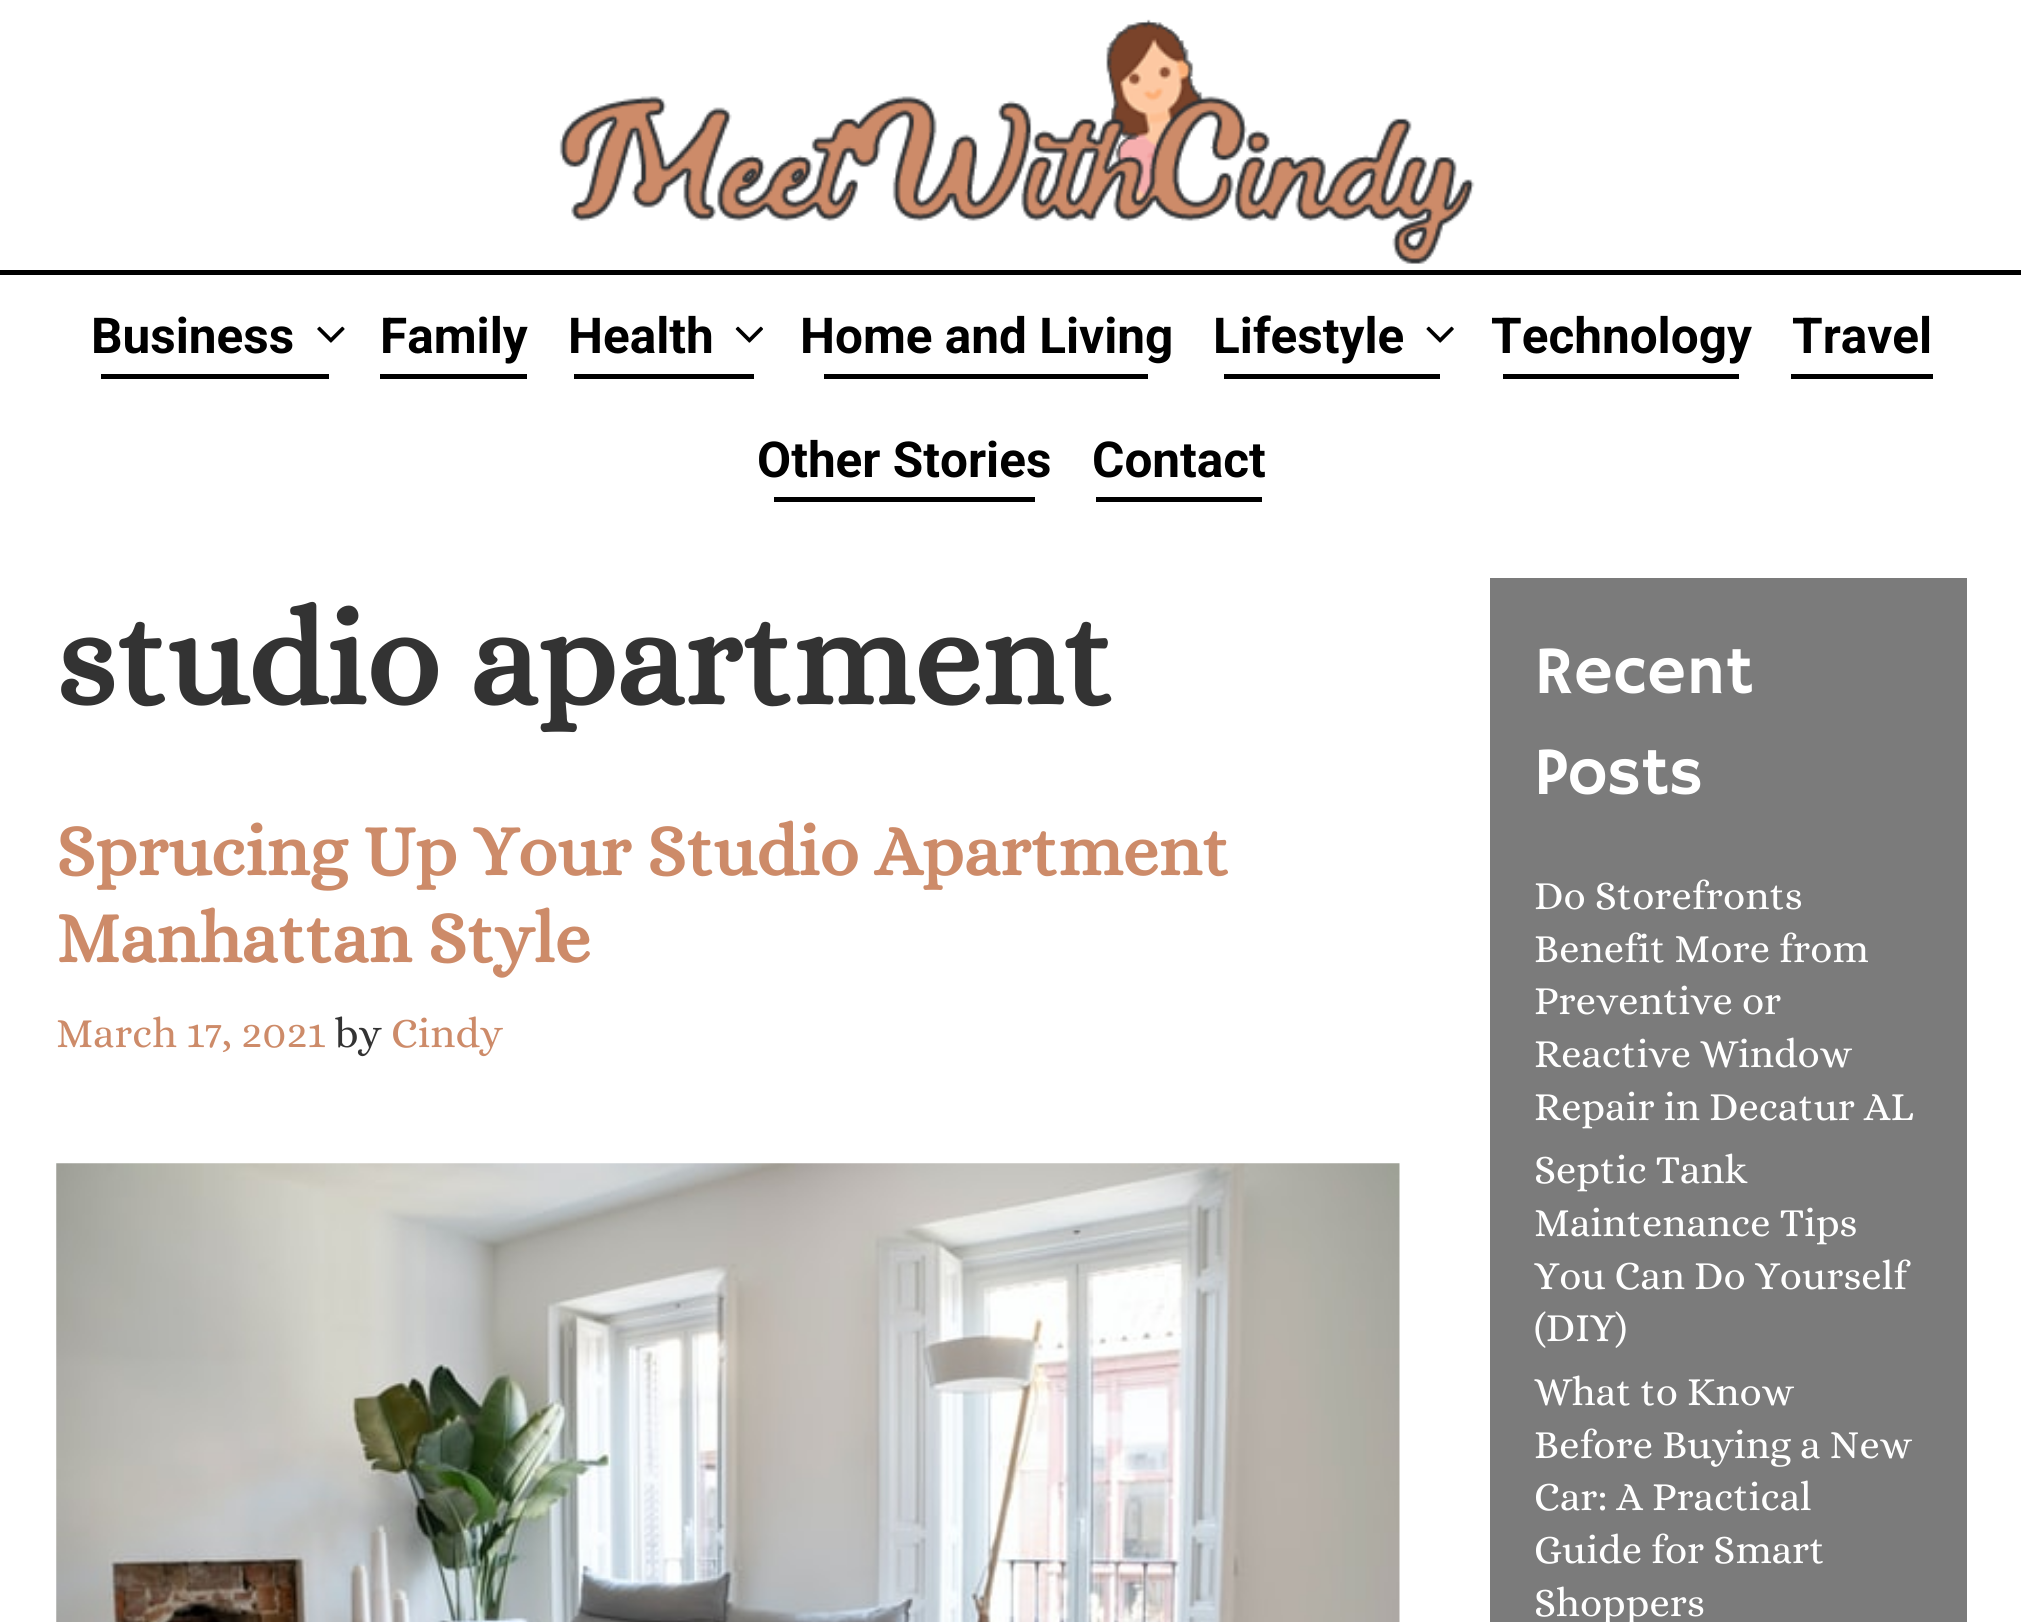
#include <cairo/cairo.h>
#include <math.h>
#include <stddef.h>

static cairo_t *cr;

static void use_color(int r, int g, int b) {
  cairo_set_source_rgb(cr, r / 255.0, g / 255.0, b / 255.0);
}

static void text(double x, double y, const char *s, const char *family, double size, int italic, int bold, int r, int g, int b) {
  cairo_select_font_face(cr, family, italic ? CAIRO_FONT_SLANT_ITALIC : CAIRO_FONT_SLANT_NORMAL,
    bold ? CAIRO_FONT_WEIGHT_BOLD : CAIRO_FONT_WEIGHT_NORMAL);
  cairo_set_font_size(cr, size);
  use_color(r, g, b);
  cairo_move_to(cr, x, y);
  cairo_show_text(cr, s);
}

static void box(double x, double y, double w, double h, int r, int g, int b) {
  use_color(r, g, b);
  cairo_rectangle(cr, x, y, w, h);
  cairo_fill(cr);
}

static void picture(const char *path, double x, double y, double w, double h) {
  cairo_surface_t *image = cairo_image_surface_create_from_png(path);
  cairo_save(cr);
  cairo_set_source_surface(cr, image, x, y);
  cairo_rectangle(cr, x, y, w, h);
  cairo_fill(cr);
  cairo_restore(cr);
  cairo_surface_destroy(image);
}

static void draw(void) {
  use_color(255, 255, 255);
  cairo_paint(cr);
  box(0, 270, 2021, 5, 0, 0, 0);
  picture("img_01.png", 559, 19, 916, 245);
  picture("img_02.png", 317, 326, 28, 17);
  box(101, 374, 228, 5, 0, 0, 0);
  box(380, 374, 147, 5, 0, 0, 0);
  picture("img_03.png", 735, 326, 28, 17);
  box(574, 374, 180, 5, 0, 0, 0);
  box(824, 374, 324, 5, 0, 0, 0);
  picture("img_04.png", 1426, 326, 28, 17);
  box(1224, 374, 216, 5, 0, 0, 0);
  box(1503, 374, 236, 5, 0, 0, 0);
  box(1791, 374, 142, 5, 0, 0, 0);
  box(774, 497, 261, 5, 0, 0, 0);
  box(1096, 497, 166, 5, 0, 0, 0);
  picture("img_05.png", 56, 1163, 1344, 459);
  box(1490, 578, 477, 1044, 123, 123, 123);
  text(91, 353, "Business", "Roboto", 49.5, 0, 1, 0, 0, 0);
  text(380, 353, "Family", "Roboto", 49.5, 0, 1, 0, 0, 0);
  text(568, 353, "Health", "Roboto", 49.5, 0, 1, 0, 0, 0);
  text(800, 353, "Home and Living", "Roboto", 49.5, 0, 1, 0, 0, 0);
  text(1213, 353, "Lifestyle", "Roboto", 49.5, 0, 1, 0, 0, 0);
  text(1491, 353, "Technology", "Roboto", 49.5, 0, 1, 0, 0, 0);
  text(1792, 353, "Travel", "Roboto", 49.5, 0, 1, 0, 0, 0);
  text(757, 477, "Other Stories", "Roboto", 49.5, 0, 1, 0, 0, 0);
  text(1092, 477, "Contact", "Roboto", 49.5, 0, 1, 0, 0, 0);
  text(56, 704, "studio apartment", "Alice", 135, 0, 1, 51, 51, 51);
  text(56, 875, "Sprucing Up Your Studio Apartment", "Alice", 72, 0, 1, 205, 139, 105);
  text(56, 962, "Manhattan Style", "Alice", 72, 0, 1, 205, 139, 105);
  text(56, 1047, "March 17, 2021", "Alice", 42, 0, 0, 205, 139, 105);
  text(335, 1047, "by", "Alice", 42, 0, 0, 51, 51, 51);
  text(391, 1047, "Cindy", "Alice", 42, 0, 0, 205, 139, 105);
  text(1534, 693, "Recent", "Hammersmith One", 67.5, 0, 0, 255, 255, 255);
  text(1534, 794, "Posts", "Hammersmith One", 67.5, 0, 0, 255, 255, 255);
  text(1534, 909, "Do Storefronts", "Alice", 40.5, 0, 0, 255, 255, 255);
  text(1534, 962, "Benefit More from", "Alice", 40.5, 0, 0, 255, 255, 255);
  text(1534, 1014, "Preventive or", "Alice", 40.5, 0, 0, 255, 255, 255);
  text(1534, 1067, "Reactive Window", "Alice", 40.5, 0, 0, 255, 255, 255);
  text(1534, 1120, "Repair in Decatur AL", "Alice", 40.5, 0, 0, 255, 255, 255);
  text(1534, 1183, "Septic Tank", "Alice", 40.5, 0, 0, 255, 255, 255);
  text(1534, 1236, "Maintenance Tips", "Alice", 40.5, 0, 0, 255, 255, 255);
  text(1534, 1289, "You Can Do Yourself", "Alice", 40.5, 0, 0, 255, 255, 255);
  text(1534, 1341, "(DIY)", "Alice", 40.5, 0, 0, 255, 255, 255);
  text(1534, 1405, "What to Know", "Alice", 40.5, 0, 0, 255, 255, 255);
  text(1534, 1458, "Before Buying a New", "Alice", 40.5, 0, 0, 255, 255, 255);
  text(1534, 1510, "Car: A Practical", "Alice", 40.5, 0, 0, 255, 255, 255);
  text(1534, 1563, "Guide for Smart", "Alice", 40.5, 0, 0, 255, 255, 255);
  text(1534, 1616, "Shoppers", "Alice", 40.5, 0, 0, 255, 255, 255);
}

int main(void) {
  cairo_surface_t *surface = cairo_image_surface_create(CAIRO_FORMAT_RGB24, 2021, 1622);
  cr = cairo_create(surface);
  cairo_font_options_t *options = cairo_font_options_create();
  cairo_font_options_set_hint_metrics(options, CAIRO_HINT_METRICS_OFF);
  cairo_font_options_set_hint_style(options, CAIRO_HINT_STYLE_NONE);
  cairo_set_font_options(cr, options);
  cairo_set_miter_limit(cr, 4);
  draw();
  cairo_surface_write_to_png(surface, "out.png");
  cairo_font_options_destroy(options);
  cairo_destroy(cr);
  cairo_surface_destroy(surface);
  return 0;
}
